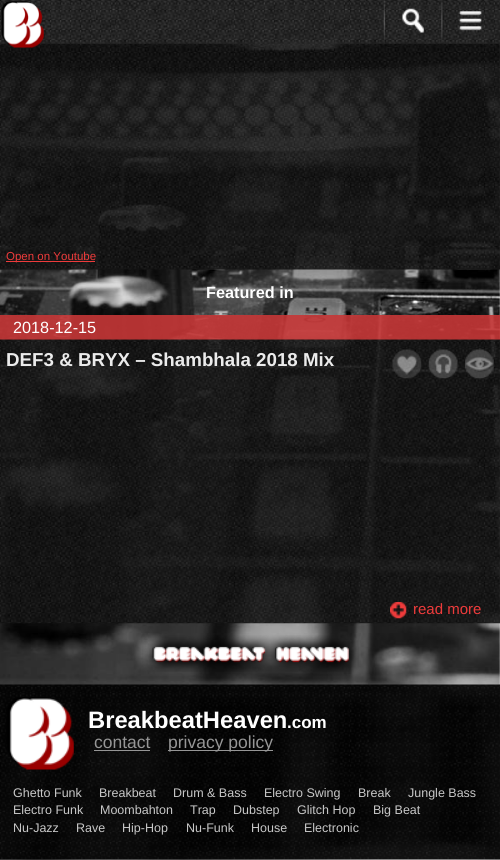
#include <cairo/cairo.h>
#include <math.h>
#include <stddef.h>

static cairo_t *cr;

static void use_color(int r, int g, int b) {
  cairo_set_source_rgb(cr, r / 255.0, g / 255.0, b / 255.0);
}

static void text(double x, double y, const char *s, const char *family, double size, int italic, int bold, int r, int g, int b) {
  cairo_select_font_face(cr, family, italic ? CAIRO_FONT_SLANT_ITALIC : CAIRO_FONT_SLANT_NORMAL,
    bold ? CAIRO_FONT_WEIGHT_BOLD : CAIRO_FONT_WEIGHT_NORMAL);
  cairo_set_font_size(cr, size);
  use_color(r, g, b);
  cairo_move_to(cr, x, y);
  cairo_show_text(cr, s);
}

static void box(double x, double y, double w, double h, int r, int g, int b) {
  use_color(r, g, b);
  cairo_rectangle(cr, x, y, w, h);
  cairo_fill(cr);
}

static void picture(const char *path, double x, double y, double w, double h) {
  cairo_surface_t *image = cairo_image_surface_create_from_png(path);
  cairo_save(cr);
  cairo_set_source_surface(cr, image, x, y);
  cairo_rectangle(cr, x, y, w, h);
  cairo_fill(cr);
  cairo_restore(cr);
  cairo_surface_destroy(image);
}

static void draw(void) {
  use_color(255, 255, 255);
  cairo_paint(cr);
  picture("img_01.png", 0, 0, 500, 860);
  picture("img_06.png", 0, 0, 500, 270);
  picture("img_02.png", 0, 0, 500, 44);
  picture("img_03.png", 1, 1, 43, 47);
  picture("img_04.png", 383, 0, 41, 44);
  picture("img_05.png", 441, 0, 41, 43);
  box(6, 261, 89, 1, 238, 59, 59);
  cairo_set_source_rgba(cr, 0.776, 0.216, 0.216, 0.9);
  cairo_rectangle(cr, 0, 315, 500, 25);
  cairo_fill(cr);
  picture("img_07.png", 0, 339, 500, 285);
  picture("img_08.png", 392, 349, 30, 30);
  picture("img_09.png", 428, 349, 30, 30);
  picture("img_10.png", 465, 349, 29, 30);
  picture("img_11.png", 390, 602, 17, 17);
  picture("img_12.png", 142, 635, 217, 37);
  picture("img_13.png", 0, 684, 500, 176);
  picture("img_14.png", 6, 697, 68, 73);
  box(94, 750, 56, 1, 150, 150, 150);
  box(168, 750, 105, 1, 150, 150, 150);
  text(6, 260, "Open on Youtube", "Liberation Sans", 11.5, 0, 0, 238, 59, 59);
  text(206, 298, "Featured in", "Liberation Sans", 16.25, 0, 1, 255, 255, 255);
  text(13, 333, "2018-12-15", "Liberation Sans", 16.25, 0, 0, 255, 255, 255);
  text(6, 366, "DEF3 & BRYX – Shambhala 2018 Mix", "Liberation Sans", 18.75, 0, 1, 235, 235, 235);
  text(413, 614, "read more", "Liberation Sans", 15, 0, 0, 238, 59, 59);
  text(88, 728, "BreakbeatHeaven", "Liberation Sans", 23.75, 0, 1, 255, 255, 255);
  text(287, 728, ".com", "Liberation Sans", 17, 0, 1, 255, 255, 255);
  text(94, 748, "contact", "Liberation Sans", 17.5, 0, 0, 150, 150, 150);
  text(168, 748, "privacy policy", "Liberation Sans", 17.5, 0, 0, 150, 150, 150);
  text(13, 797, "Ghetto Funk", "Liberation Sans", 12.5, 0, 0, 200, 200, 200);
  text(99, 797, "Breakbeat", "Liberation Sans", 12.5, 0, 0, 200, 200, 200);
  text(173, 797, "Drum & Bass", "Liberation Sans", 12.5, 0, 0, 200, 200, 200);
  text(264, 797, "Electro Swing", "Liberation Sans", 12.5, 0, 0, 200, 200, 200);
  text(358, 797, "Break", "Liberation Sans", 12.5, 0, 0, 200, 200, 200);
  text(408, 797, "Jungle Bass", "Liberation Sans", 12.5, 0, 0, 200, 200, 200);
  text(13, 814, "Electro Funk", "Liberation Sans", 12.5, 0, 0, 200, 200, 200);
  text(100, 814, "Moombahton", "Liberation Sans", 12.5, 0, 0, 200, 200, 200);
  text(190, 814, "Trap", "Liberation Sans", 12.5, 0, 0, 200, 200, 200);
  text(233, 814, "Dubstep", "Liberation Sans", 12.5, 0, 0, 200, 200, 200);
  text(297, 814, "Glitch Hop", "Liberation Sans", 12.5, 0, 0, 200, 200, 200);
  text(373, 814, "Big Beat", "Liberation Sans", 12.5, 0, 0, 200, 200, 200);
  text(13, 832, "Nu-Jazz", "Liberation Sans", 12.5, 0, 0, 200, 200, 200);
  text(76, 832, "Rave", "Liberation Sans", 12.5, 0, 0, 200, 200, 200);
  text(122, 832, "Hip-Hop", "Liberation Sans", 12.5, 0, 0, 200, 200, 200);
  text(186, 832, "Nu-Funk", "Liberation Sans", 12.5, 0, 0, 200, 200, 200);
  text(251, 832, "House", "Liberation Sans", 12.5, 0, 0, 200, 200, 200);
  text(304, 832, "Electronic", "Liberation Sans", 12.5, 0, 0, 200, 200, 200);
}

int main(void) {
  cairo_surface_t *surface = cairo_image_surface_create(CAIRO_FORMAT_RGB24, 500, 860);
  cr = cairo_create(surface);
  cairo_font_options_t *options = cairo_font_options_create();
  cairo_font_options_set_hint_metrics(options, CAIRO_HINT_METRICS_OFF);
  cairo_font_options_set_hint_style(options, CAIRO_HINT_STYLE_NONE);
  cairo_set_font_options(cr, options);
  cairo_set_miter_limit(cr, 4);
  draw();
  cairo_surface_write_to_png(surface, "out.png");
  cairo_font_options_destroy(options);
  cairo_destroy(cr);
  cairo_surface_destroy(surface);
  return 0;
}
